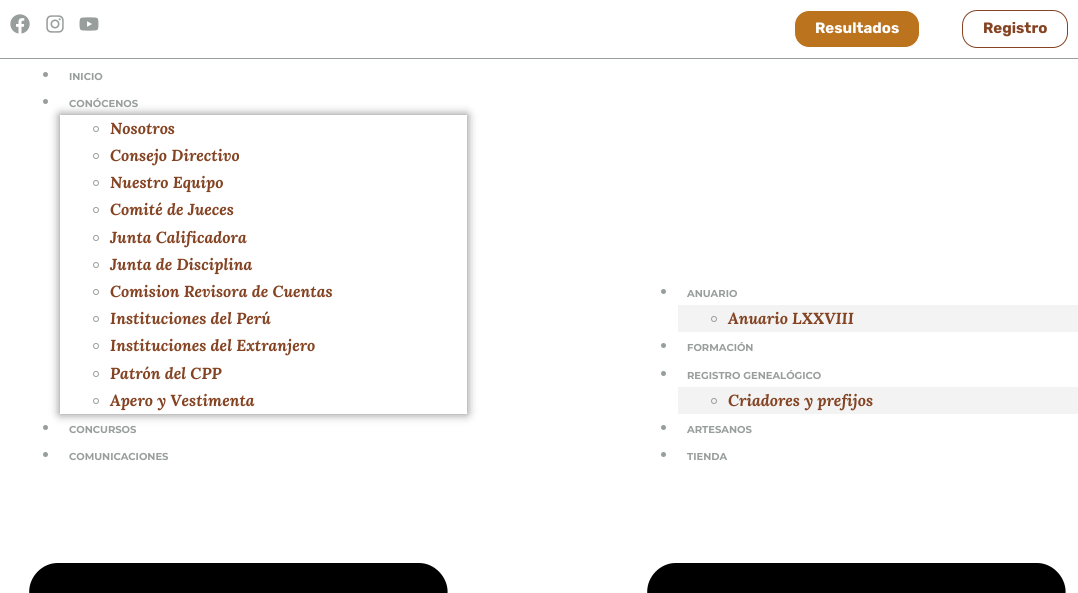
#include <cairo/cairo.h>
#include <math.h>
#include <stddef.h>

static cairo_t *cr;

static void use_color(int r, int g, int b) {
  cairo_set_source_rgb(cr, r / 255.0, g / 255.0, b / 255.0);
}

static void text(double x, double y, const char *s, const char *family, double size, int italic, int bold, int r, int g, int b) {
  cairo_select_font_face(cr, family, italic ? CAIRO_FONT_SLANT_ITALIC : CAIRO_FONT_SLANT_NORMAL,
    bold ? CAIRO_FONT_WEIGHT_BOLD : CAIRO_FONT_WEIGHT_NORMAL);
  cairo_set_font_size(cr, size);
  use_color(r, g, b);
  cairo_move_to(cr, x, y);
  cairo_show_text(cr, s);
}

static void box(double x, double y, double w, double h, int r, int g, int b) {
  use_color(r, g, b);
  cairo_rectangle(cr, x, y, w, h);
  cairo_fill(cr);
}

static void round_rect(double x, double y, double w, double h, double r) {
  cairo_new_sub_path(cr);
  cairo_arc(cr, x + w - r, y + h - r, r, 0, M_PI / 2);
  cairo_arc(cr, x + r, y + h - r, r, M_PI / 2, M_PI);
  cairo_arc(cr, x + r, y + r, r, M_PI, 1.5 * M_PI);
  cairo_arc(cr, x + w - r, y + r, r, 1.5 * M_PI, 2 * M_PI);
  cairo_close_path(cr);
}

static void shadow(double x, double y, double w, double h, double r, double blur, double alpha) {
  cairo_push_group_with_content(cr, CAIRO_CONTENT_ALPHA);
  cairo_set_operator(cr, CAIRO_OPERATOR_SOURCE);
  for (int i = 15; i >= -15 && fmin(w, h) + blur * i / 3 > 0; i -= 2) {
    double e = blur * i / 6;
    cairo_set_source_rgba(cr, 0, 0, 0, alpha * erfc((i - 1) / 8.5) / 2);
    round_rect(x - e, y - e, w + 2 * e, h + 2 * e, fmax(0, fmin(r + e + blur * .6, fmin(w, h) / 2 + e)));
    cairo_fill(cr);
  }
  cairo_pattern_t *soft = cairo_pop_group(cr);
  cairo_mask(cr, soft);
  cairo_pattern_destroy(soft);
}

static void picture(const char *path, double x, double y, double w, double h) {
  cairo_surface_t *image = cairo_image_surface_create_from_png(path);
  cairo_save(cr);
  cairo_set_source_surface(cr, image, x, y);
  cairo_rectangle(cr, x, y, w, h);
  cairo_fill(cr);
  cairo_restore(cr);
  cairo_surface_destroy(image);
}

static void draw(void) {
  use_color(255, 255, 255);
  cairo_paint(cr);
  box(0, 58, 1078, 1, 152, 158, 156);
  picture("img_01.png", 10, 14, 20, 20);
  picture("img_02.png", 46, 15, 18, 18);
  picture("img_03.png", 79, 17, 20, 14);
  use_color(188, 115, 30);
  round_rect(794.5, 10.5, 125, 37, 14.5);
  cairo_fill_preserve(cr);
  use_color(255, 255, 255);
  cairo_set_line_width(cr, 1);
  cairo_stroke(cr);
  round_rect(962.5, 10.5, 105, 37, 14.5);
  use_color(132, 67, 34);
  cairo_stroke(cr);
  use_color(152, 158, 156);
  cairo_arc(cr, 45.5, 74.5, 2.5, 0, 2 * M_PI);
  cairo_fill(cr);
  cairo_save(cr);
  cairo_set_fill_rule(cr, CAIRO_FILL_RULE_EVEN_ODD);
  cairo_new_path(cr);
  cairo_move_to(cr, 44, 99);
  cairo_line_to(cr, 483, 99);
  cairo_line_to(cr, 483, 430);
  cairo_line_to(cr, 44, 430);
  cairo_close_path(cr);
  cairo_move_to(cr, 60, 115);
  cairo_line_to(cr, 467, 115);
  cairo_line_to(cr, 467, 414);
  cairo_line_to(cr, 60, 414);
  cairo_close_path(cr);
  cairo_clip(cr);
  use_color(0, 0, 0);
  shadow(60, 115, 407, 299, 0, 5, 0.5);
  cairo_restore(cr);
  cairo_arc(cr, 45.5, 101.5, 2.5, 0, 2 * M_PI);
  cairo_fill(cr);
  cairo_arc(cr, 96, 129, 2.5, 0, 2 * M_PI);
  cairo_stroke(cr);
  cairo_arc(cr, 96, 156, 2.5, 0, 2 * M_PI);
  cairo_stroke(cr);
  cairo_arc(cr, 96, 183, 2.5, 0, 2 * M_PI);
  cairo_stroke(cr);
  cairo_arc(cr, 96, 210, 2.5, 0, 2 * M_PI);
  cairo_stroke(cr);
  cairo_arc(cr, 96, 238, 2.5, 0, 2 * M_PI);
  cairo_stroke(cr);
  cairo_arc(cr, 96, 265, 2.5, 0, 2 * M_PI);
  cairo_stroke(cr);
  cairo_arc(cr, 96, 292, 2.5, 0, 2 * M_PI);
  cairo_stroke(cr);
  cairo_arc(cr, 96, 319, 2.5, 0, 2 * M_PI);
  cairo_stroke(cr);
  cairo_arc(cr, 96, 346, 2.5, 0, 2 * M_PI);
  cairo_stroke(cr);
  cairo_arc(cr, 96, 374, 2.5, 0, 2 * M_PI);
  cairo_stroke(cr);
  cairo_arc(cr, 96, 401, 2.5, 0, 2 * M_PI);
  cairo_stroke(cr);
  cairo_arc(cr, 45.5, 427.5, 2.5, 0, 2 * M_PI);
  cairo_fill(cr);
  cairo_arc(cr, 45.5, 454.5, 2.5, 0, 2 * M_PI);
  cairo_fill(cr);
  picture("img_04.png", 29, 563, 419, 30);
  cairo_arc(cr, 663.5, 291.5, 2.5, 0, 2 * M_PI);
  cairo_fill(cr);
  box(678, 305, 400, 27, 243, 243, 243);
  cairo_arc(cr, 714, 319, 2.5, 0, 2 * M_PI);
  use_color(152, 158, 156);
  cairo_stroke(cr);
  cairo_arc(cr, 663.5, 345.5, 2.5, 0, 2 * M_PI);
  cairo_fill(cr);
  cairo_arc(cr, 663.5, 373.5, 2.5, 0, 2 * M_PI);
  cairo_fill(cr);
  box(678, 387, 400, 27, 243, 243, 243);
  cairo_arc(cr, 714, 401, 2.5, 0, 2 * M_PI);
  use_color(152, 158, 156);
  cairo_stroke(cr);
  cairo_arc(cr, 663.5, 427.5, 2.5, 0, 2 * M_PI);
  cairo_fill(cr);
  cairo_arc(cr, 663.5, 454.5, 2.5, 0, 2 * M_PI);
  cairo_fill(cr);
  picture("img_04.png", 647, 563, 419, 30);
  text(815, 33, "Resultados", "Rubik", 15, 0, 1, 255, 255, 255);
  text(983, 33, "Registro", "Rubik", 15, 0, 1, 132, 67, 34);
  text(69, 80, "INICIO", "Montserrat", 10, 0, 1, 152, 158, 156);
  text(69, 107, "CONÓCENOS", "Montserrat", 10, 0, 1, 152, 158, 156);
  text(110, 134, "Nosotros", "Lora", 16, 1, 1, 132, 67, 34);
  text(110, 161, "Consejo Directivo", "Lora", 16, 1, 1, 132, 67, 34);
  text(110, 188, "Nuestro Equipo", "Lora", 16, 1, 1, 132, 67, 34);
  text(110, 215, "Comité de Jueces", "Lora", 16, 1, 1, 132, 67, 34);
  text(110, 243, "Junta Calificadora", "Lora", 16, 1, 1, 132, 67, 34);
  text(110, 270, "Junta de Disciplina", "Lora", 16, 1, 1, 132, 67, 34);
  text(110, 297, "Comision Revisora de Cuentas", "Lora", 16, 1, 1, 132, 67, 34);
  text(110, 324, "Instituciones del Perú", "Lora", 16, 1, 1, 132, 67, 34);
  text(110, 351, "Instituciones del Extranjero", "Lora", 16, 1, 1, 132, 67, 34);
  text(110, 379, "Patrón del CPP", "Lora", 16, 1, 1, 132, 67, 34);
  text(110, 406, "Apero y Vestimenta", "Lora", 16, 1, 1, 132, 67, 34);
  text(69, 433, "CONCURSOS", "Montserrat", 10, 0, 1, 152, 158, 156);
  text(69, 460, "COMUNICACIONES", "Montserrat", 10, 0, 1, 152, 158, 156);
  text(687, 297, "ANUARIO", "Montserrat", 10, 0, 1, 152, 158, 156);
  text(728, 324, "Anuario LXXVIII", "Lora", 16, 1, 1, 132, 67, 34);
  text(687, 351, "FORMACIÓN", "Montserrat", 10, 0, 1, 152, 158, 156);
  text(687, 379, "REGISTRO GENEALÓGICO", "Montserrat", 10, 0, 1, 152, 158, 156);
  text(728, 406, "Criadores y prefijos", "Lora", 16, 1, 1, 132, 67, 34);
  text(687, 433, "ARTESANOS", "Montserrat", 10, 0, 1, 152, 158, 156);
  text(687, 460, "TIENDA", "Montserrat", 10, 0, 1, 152, 158, 156);
}

int main(void) {
  cairo_surface_t *surface = cairo_image_surface_create(CAIRO_FORMAT_RGB24, 1078, 593);
  cr = cairo_create(surface);
  cairo_font_options_t *options = cairo_font_options_create();
  cairo_font_options_set_hint_metrics(options, CAIRO_HINT_METRICS_OFF);
  cairo_font_options_set_hint_style(options, CAIRO_HINT_STYLE_NONE);
  cairo_set_font_options(cr, options);
  cairo_set_miter_limit(cr, 4);
  draw();
  cairo_surface_write_to_png(surface, "out.png");
  cairo_font_options_destroy(options);
  cairo_destroy(cr);
  cairo_surface_destroy(surface);
  return 0;
}
